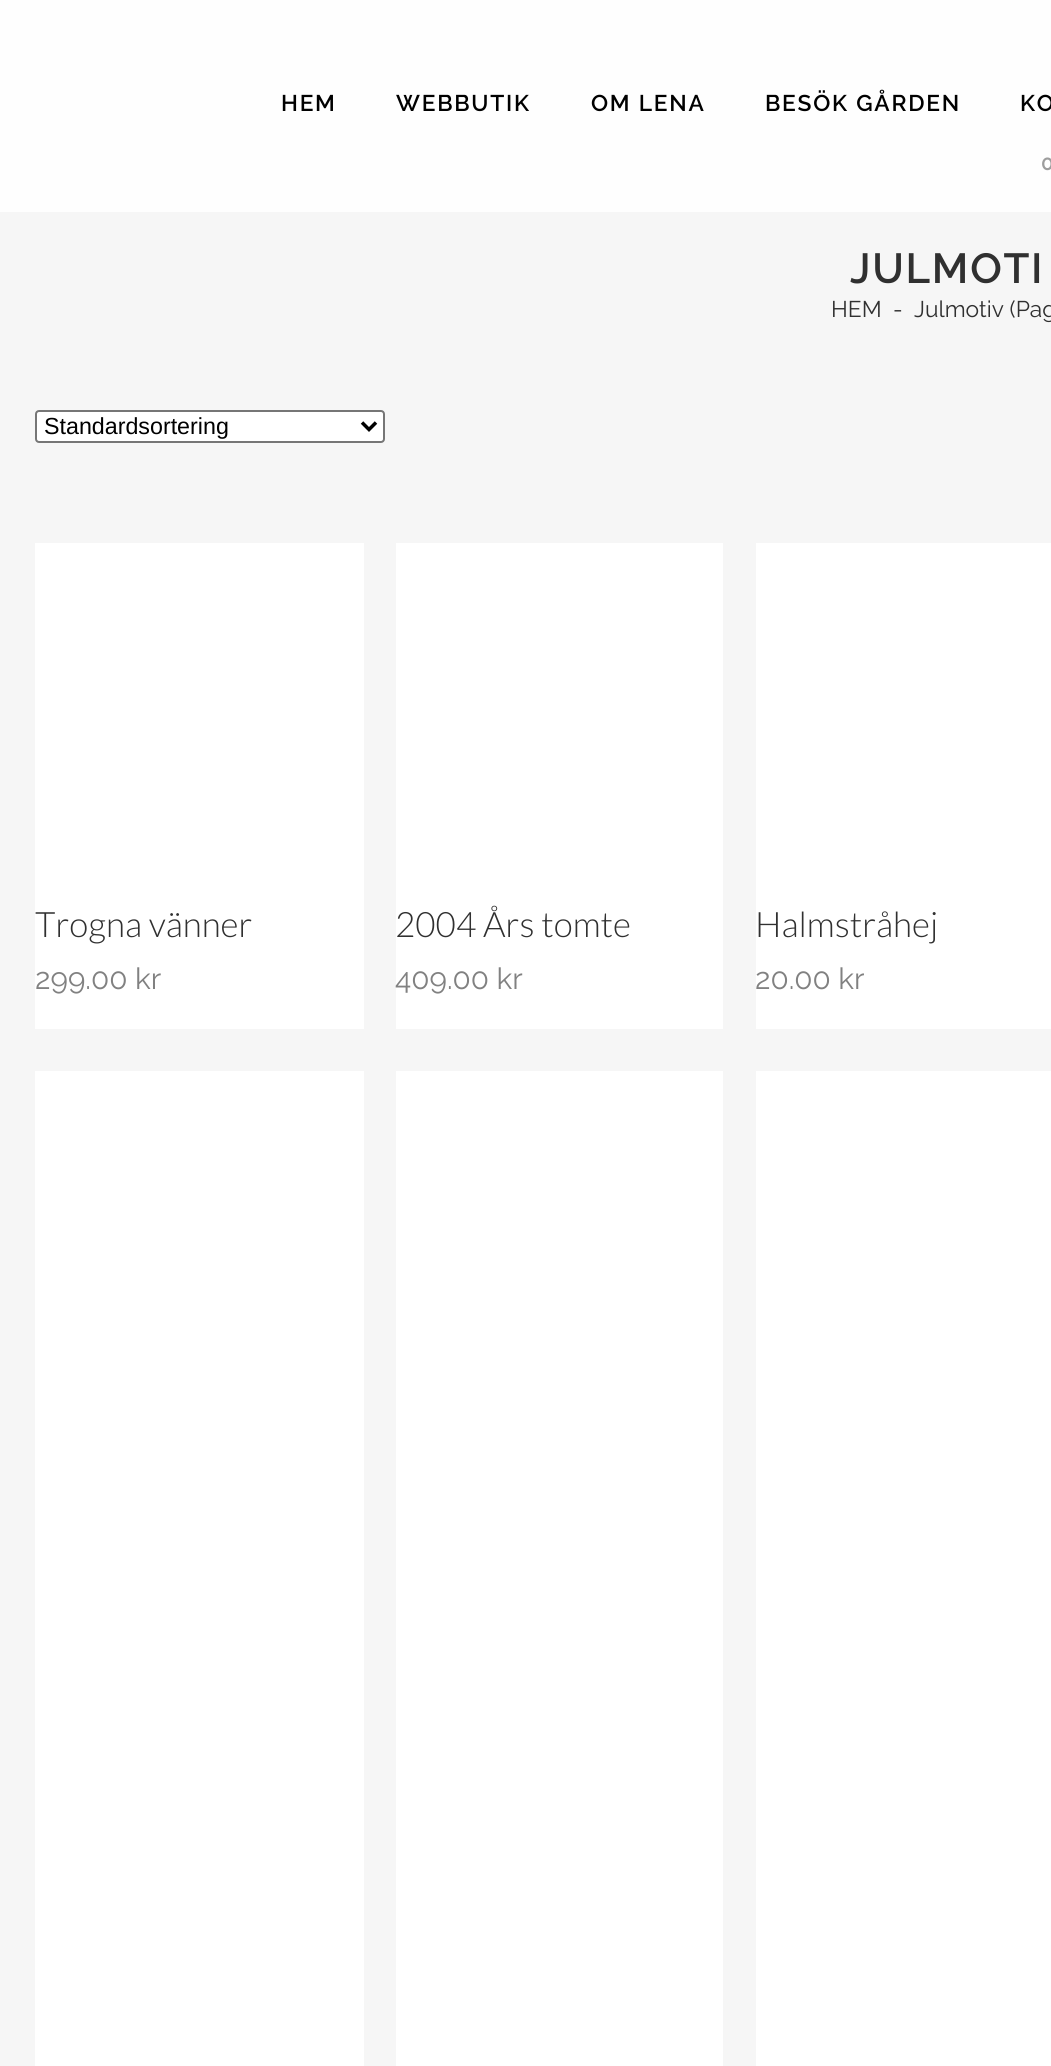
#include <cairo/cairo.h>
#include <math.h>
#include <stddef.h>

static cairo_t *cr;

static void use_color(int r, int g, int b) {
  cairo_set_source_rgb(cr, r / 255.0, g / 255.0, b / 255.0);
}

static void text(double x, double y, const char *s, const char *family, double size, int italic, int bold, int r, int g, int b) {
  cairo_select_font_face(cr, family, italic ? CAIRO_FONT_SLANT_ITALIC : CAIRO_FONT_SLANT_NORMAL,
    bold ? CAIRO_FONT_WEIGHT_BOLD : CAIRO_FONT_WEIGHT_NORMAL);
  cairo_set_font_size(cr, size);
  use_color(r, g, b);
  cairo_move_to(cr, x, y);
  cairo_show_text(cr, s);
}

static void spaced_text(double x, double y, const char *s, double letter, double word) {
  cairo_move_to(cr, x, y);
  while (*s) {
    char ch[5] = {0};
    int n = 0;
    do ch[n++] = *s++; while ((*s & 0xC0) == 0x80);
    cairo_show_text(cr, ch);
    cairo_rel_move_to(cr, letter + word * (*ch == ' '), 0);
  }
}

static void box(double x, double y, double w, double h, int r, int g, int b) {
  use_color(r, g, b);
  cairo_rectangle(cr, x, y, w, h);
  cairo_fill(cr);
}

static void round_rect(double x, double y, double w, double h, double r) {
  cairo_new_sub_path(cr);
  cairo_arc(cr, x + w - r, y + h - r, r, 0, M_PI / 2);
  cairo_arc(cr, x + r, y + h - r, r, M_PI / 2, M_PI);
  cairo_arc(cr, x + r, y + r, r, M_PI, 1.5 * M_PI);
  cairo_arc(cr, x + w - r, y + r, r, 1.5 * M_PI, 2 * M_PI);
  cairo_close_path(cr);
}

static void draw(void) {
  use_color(246, 246, 246);
  cairo_paint(cr);
  box(0, 0, 1051, 212, 254, 254, 254);
  use_color(255, 255, 255);
  round_rect(36, 411, 348, 31, 3);
  cairo_fill_preserve(cr);
  use_color(118, 118, 118);
  cairo_stroke(cr);
  cairo_new_path(cr);
  cairo_move_to(cr, 362, 422.5);
  cairo_line_to(cr, 369, 429.5);
  cairo_line_to(cr, 376, 422.5);
  use_color(0, 0, 0);
  cairo_set_line_width(cr, 3.5);
  cairo_stroke(cr);
  box(35, 543, 329, 486, 255, 255, 255);
  box(396, 543, 327, 486, 255, 255, 255);
  box(756, 543, 295, 486, 255, 255, 255);
  box(35, 1071, 329, 995, 255, 255, 255);
  box(396, 1071, 327, 995, 255, 255, 255);
  box(756, 1071, 295, 995, 255, 255, 255);
  cairo_select_font_face(cr, "Raleway SemiBold", CAIRO_FONT_SLANT_NORMAL, CAIRO_FONT_WEIGHT_NORMAL);
  cairo_set_font_size(cr, 22.75);
  use_color(0, 0, 0);
  spaced_text(281, 111, "HEM", 1.75, 0);
  spaced_text(396, 111, "WEBBUTIK", 1.75, 0);
  spaced_text(591, 111, "OM LENA", 1.75, 0);
  spaced_text(765, 111, "BESÖK GÅRDEN", 1.75, 0);
  spaced_text(1020, 111, "KO", 1.75, 0);
  text(1041, 170, "0", "Raleway SemiBold", 21, 0, 0, 157, 157, 157);
  cairo_set_font_size(cr, 42);
  use_color(48, 48, 48);
  spaced_text(850, 283, "JULMOTI", 1.75, 0);
  text(831, 317, "HEM", "Raleway", 22.75, 0, 0, 48, 48, 48);
  text(893, 317, "-", "Raleway", 22.75, 0, 0, 48, 48, 48);
  text(914, 317, "Julmotiv (Pag", "Raleway", 22.75, 0, 0, 48, 48, 48);
  text(44, 434, "Standardsortering", "Liberation Sans", 23.25, 0, 0, 0, 0, 0);
  text(35, 937, "Trogna vänner", "Lato Light", 35, 0, 0, 48, 48, 48);
  text(35, 989, "299.00 kr", "Raleway", 29.75, 0, 0, 129, 129, 129);
  text(395, 937, "2004 Års tomte", "Lato Light", 35, 0, 0, 48, 48, 48);
  text(395, 989, "409.00 kr", "Raleway", 29.75, 0, 0, 129, 129, 129);
  text(755, 937, "Halmstråhej", "Lato Light", 35, 0, 0, 48, 48, 48);
  text(755, 989, "20.00 kr", "Raleway", 29.75, 0, 0, 129, 129, 129);
}

int main(void) {
  cairo_surface_t *surface = cairo_image_surface_create(CAIRO_FORMAT_RGB24, 1051, 2066);
  cr = cairo_create(surface);
  cairo_font_options_t *options = cairo_font_options_create();
  cairo_font_options_set_hint_metrics(options, CAIRO_HINT_METRICS_OFF);
  cairo_font_options_set_hint_style(options, CAIRO_HINT_STYLE_NONE);
  cairo_set_font_options(cr, options);
  cairo_set_miter_limit(cr, 4);
  draw();
  cairo_surface_write_to_png(surface, "out.png");
  cairo_font_options_destroy(options);
  cairo_destroy(cr);
  cairo_surface_destroy(surface);
  return 0;
}
